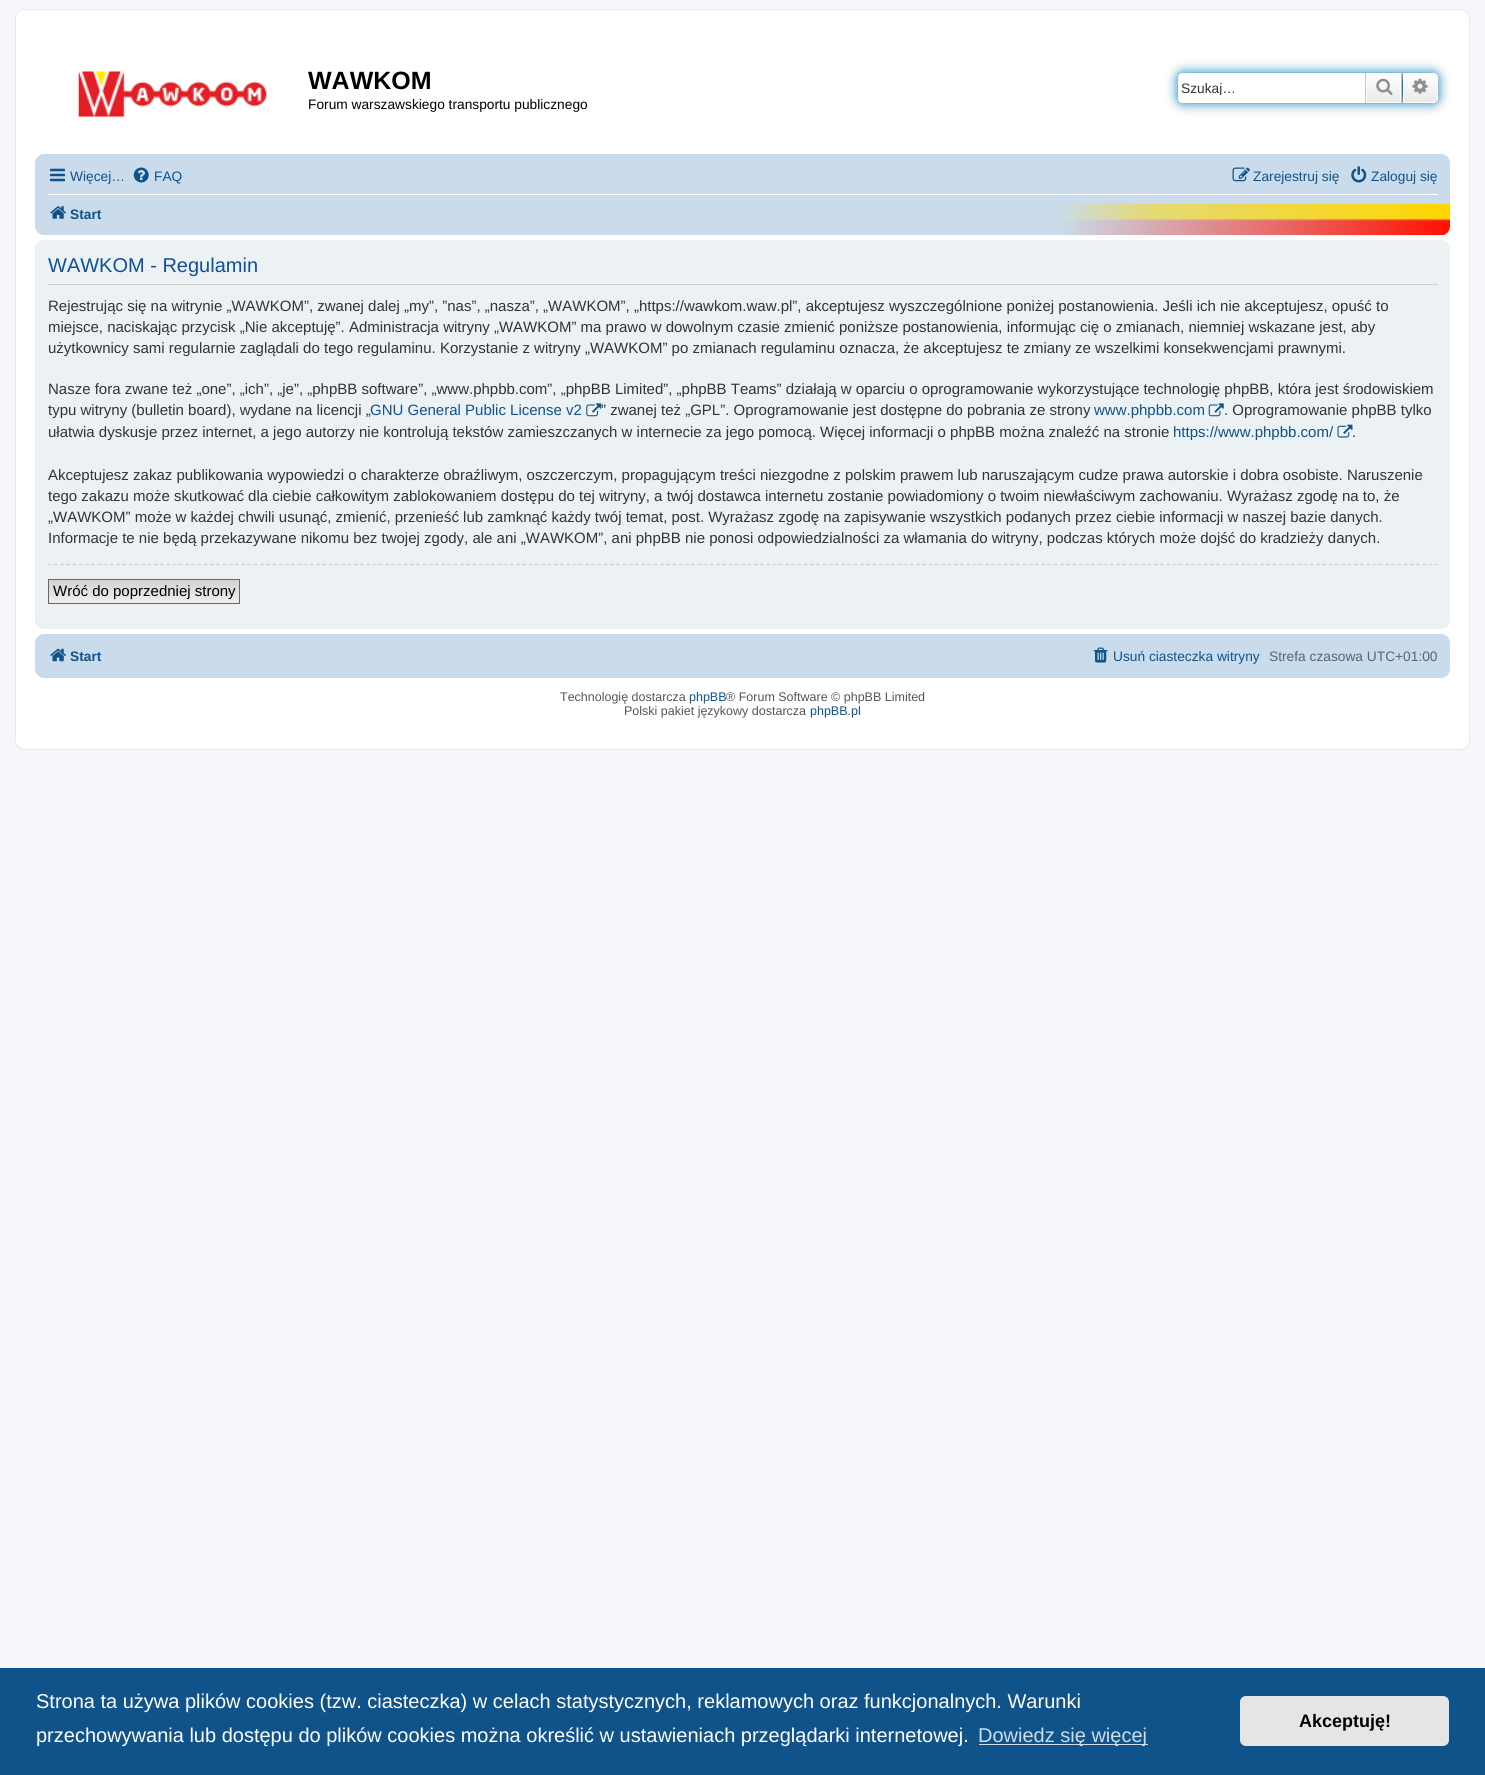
#include <cairo/cairo.h>
#include <math.h>
#include <stddef.h>

static cairo_t *cr;

static void use_color(int r, int g, int b) {
  cairo_set_source_rgb(cr, r / 255.0, g / 255.0, b / 255.0);
}

static void text(double x, double y, const char *s, const char *family, double size, int italic, int bold, int r, int g, int b) {
  cairo_select_font_face(cr, family, italic ? CAIRO_FONT_SLANT_ITALIC : CAIRO_FONT_SLANT_NORMAL,
    bold ? CAIRO_FONT_WEIGHT_BOLD : CAIRO_FONT_WEIGHT_NORMAL);
  cairo_set_font_size(cr, size);
  use_color(r, g, b);
  cairo_move_to(cr, x, y);
  cairo_show_text(cr, s);
}

static void box(double x, double y, double w, double h, int r, int g, int b) {
  use_color(r, g, b);
  cairo_rectangle(cr, x, y, w, h);
  cairo_fill(cr);
}

static void round_rect(double x, double y, double w, double h, double r) {
  cairo_new_sub_path(cr);
  cairo_arc(cr, x + w - r, y + h - r, r, 0, M_PI / 2);
  cairo_arc(cr, x + r, y + h - r, r, M_PI / 2, M_PI);
  cairo_arc(cr, x + r, y + r, r, M_PI, 1.5 * M_PI);
  cairo_arc(cr, x + w - r, y + r, r, 1.5 * M_PI, 2 * M_PI);
  cairo_close_path(cr);
}

static void shadow(double x, double y, double w, double h, double r, double blur, double alpha) {
  cairo_push_group_with_content(cr, CAIRO_CONTENT_ALPHA);
  cairo_set_operator(cr, CAIRO_OPERATOR_SOURCE);
  for (int i = 15; i >= -15 && fmin(w, h) + blur * i / 3 > 0; i -= 2) {
    double e = blur * i / 6;
    cairo_set_source_rgba(cr, 0, 0, 0, alpha * erfc((i - 1) / 8.5) / 2);
    round_rect(x - e, y - e, w + 2 * e, h + 2 * e, fmax(0, fmin(r + e + blur * .6, fmin(w, h) / 2 + e)));
    cairo_fill(cr);
  }
  cairo_pattern_t *soft = cairo_pop_group(cr);
  cairo_mask(cr, soft);
  cairo_pattern_destroy(soft);
}

static void picture(const char *path, double x, double y, double w, double h) {
  cairo_surface_t *image = cairo_image_surface_create_from_png(path);
  cairo_save(cr);
  cairo_set_source_surface(cr, image, x, y);
  cairo_rectangle(cr, x, y, w, h);
  cairo_fill(cr);
  cairo_restore(cr);
  cairo_surface_destroy(image);
}

static void draw(void) {
  cairo_pattern_t *gradient;
  use_color(245, 247, 250);
  cairo_paint(cr);
  use_color(255, 255, 255);
  round_rect(15.5, 9.5, 1454, 740, 9.5);
  cairo_fill_preserve(cr);
  use_color(230, 233, 237);
  cairo_set_line_width(cr, 1);
  cairo_stroke(cr);
  picture("img_01.png", 78, 71, 189, 47);
  use_color(0, 117, 176);
  shadow(1178, 73, 260, 30, 5, 6, 1);
  use_color(255, 255, 255);
  cairo_new_path(cr);
  cairo_move_to(cr, 1183, 73);
  cairo_line_to(cr, 1365, 73);
  cairo_line_to(cr, 1365, 103);
  cairo_line_to(cr, 1183, 103);
  cairo_curve_to(cr, 1180, 103, 1178, 101, 1178, 98);
  cairo_line_to(cr, 1178, 78);
  cairo_curve_to(cr, 1178, 75, 1180, 73, 1183, 73);
  cairo_close_path(cr);
  cairo_fill(cr);
  gradient = cairo_pattern_create_linear(1384, 73, 1384, 103);
  cairo_pattern_add_color_stop_rgba(gradient, 0, 1, 1, 1, 1);
  cairo_pattern_add_color_stop_rgba(gradient, 1, 0.914, 0.914, 0.914, 1);
  cairo_set_source(cr, gradient);
  cairo_pattern_destroy(gradient);
  cairo_rectangle(cr, 1367, 74, 33, 28);
  cairo_fill(cr);
  cairo_rectangle(cr, 1366.5, 73.5, 34, 29);
  use_color(255, 255, 255);
  cairo_stroke(cr);
  box(1401, 73, 1, 30, 199, 195, 191);
  box(1365, 73, 1, 30, 199, 195, 191);
  picture("img_02.png", 1376, 78, 17, 17);
  gradient = cairo_pattern_create_linear(1420, 73, 1420, 103);
  cairo_pattern_add_color_stop_rgba(gradient, 0, 1, 1, 1, 1);
  cairo_pattern_add_color_stop_rgba(gradient, 1, 0.914, 0.914, 0.914, 1);
  cairo_set_source(cr, gradient);
  cairo_pattern_destroy(gradient);
  cairo_new_path(cr);
  cairo_move_to(cr, 1403.5, 73.5);
  cairo_line_to(cr, 1433, 73.5);
  cairo_curve_to(cr, 1435.5, 73.5, 1437.5, 75.5, 1437.5, 78);
  cairo_line_to(cr, 1437.5, 98);
  cairo_curve_to(cr, 1437.5, 100.5, 1435.5, 102.5, 1433, 102.5);
  cairo_line_to(cr, 1403.5, 102.5);
  cairo_close_path(cr);
  cairo_fill_preserve(cr);
  use_color(255, 255, 255);
  cairo_stroke(cr);
  picture("img_03.png", 1412, 78, 16, 16);
  use_color(202, 220, 235);
  round_rect(35, 154, 1415, 81, 9);
  cairo_fill(cr);
  picture("img_04.png", 1061, 204, 389, 32);
  picture("img_05.png", 50, 168, 15, 14);
  picture("img_06.png", 133, 167, 16, 16);
  picture("img_07.png", 1232, 167, 18, 15);
  picture("img_08.png", 1351, 166, 16, 17);
  box(48, 194, 1390, 1, 255, 255, 255);
  picture("img_09.png", 50, 206, 16, 13);
  use_color(236, 241, 243);
  round_rect(35, 240, 1415, 389, 9);
  cairo_fill(cr);
  box(48, 284, 1390, 1, 204, 204, 204);
  picture("img_11.png", 1208, 403, 16, 14);
  picture("img_12.png", 1337, 424, 16, 14);
  cairo_new_path(cr);
  cairo_move_to(cr, 47.5, 564.5);
  cairo_line_to(cr, 1437.5, 564.5);
  cairo_set_line_width(cr, 1.2);
  cairo_set_dash(cr, (double[]){3.75, 2.5}, 2, 0);
  cairo_stroke(cr);
  gradient = cairo_pattern_create_linear(144, 580, 144, 603);
  cairo_pattern_add_color_stop_rgba(gradient, 0, 0.824, 0.824, 0.824, 1);
  cairo_pattern_add_color_stop_rgba(gradient, 1, 0.937, 0.937, 0.937, 1);
  cairo_set_source(cr, gradient);
  cairo_pattern_destroy(gradient);
  cairo_rectangle(cr, 49, 580, 190, 23);
  cairo_fill(cr);
  cairo_rectangle(cr, 48.5, 579.5, 191, 24);
  use_color(102, 102, 102);
  cairo_set_line_width(cr, 1);
  cairo_set_dash(cr, NULL, 0, 0);
  cairo_stroke(cr);
  use_color(202, 220, 235);
  round_rect(35, 634, 1415, 44, 9);
  cairo_fill(cr);
  picture("img_13.png", 50, 648, 16, 14);
  picture("img_14.png", 1093, 647, 15, 16);
  box(0, 1668, 1485, 107, 15, 83, 138);
  box(979, 1744, 169, 1, 207, 221, 232);
  use_color(229, 229, 229);
  round_rect(1240, 1696, 209, 50, 6);
  cairo_fill(cr);
  text(308, 89, "WAWKOM", "Liberation Sans", 25, 0, 1, 0, 0, 0);
  text(308, 109, "Forum warszawskiego transportu publicznego", "Liberation Sans", 13.75, 0, 0, 0, 0, 0);
  cairo_save(cr);
  cairo_rectangle(cr, 1181, 80, 175, 15);
  cairo_clip(cr);
  text(1181, 93, "Szukaj…", "Liberation Sans", 13.75, 0, 0, 51, 51, 51);
  cairo_restore(cr);
  text(70, 181, "Więcej…", "Liberation Sans", 13.75, 0, 0, 16, 82, 137);
  text(154, 181, "FAQ", "Liberation Sans", 13.75, 0, 0, 16, 82, 137);
  text(1253, 181, "Zarejestruj się", "Liberation Sans", 13.75, 0, 0, 16, 82, 137);
  text(1371, 181, "Zaloguj się", "Liberation Sans", 13.75, 0, 0, 16, 82, 137);
  text(70, 219, "Start", "Liberation Sans", 13.75, 0, 1, 16, 82, 137);
  text(48, 272, "WAWKOM - Regulamin", "Liberation Sans", 20, 0, 0, 17, 80, 152);
  text(48, 311, "Rejestrując się na witrynie „WAWKOM”, zwanej dalej „my”, ”nas”, „nasza”, „WAWKOM”, „https://wawkom.waw.pl”, akceptujesz wyszczególnione poniżej postanowienia. Jeśli ich nie akceptujesz, opuść to", "Liberation Sans", 15, 0, 0, 51, 51, 51);
  text(48, 332, "miejsce, naciskając przycisk „Nie akceptuję”. Administracja witryny „WAWKOM” ma prawo w dowolnym czasie zmienić poniższe postanowienia, informując cię o zmianach, niemniej wskazane jest, aby", "Liberation Sans", 15, 0, 0, 51, 51, 51);
  text(48, 353, "użytkownicy sami regularnie zaglądali do tego regulaminu. Korzystanie z witryny „WAWKOM” po zmianach regulaminu oznacza, że akceptujesz te zmiany ze wszelkimi konsekwencjami prawnymi.", "Liberation Sans", 15, 0, 0, 51, 51, 51);
  text(48, 394, "Nasze fora zwane też „one”, „ich”, „je”, „phpBB software”, „www.phpbb.com”, „phpBB Limited”, „phpBB Teams” działają w oparciu o oprogramowanie wykorzystujące technologię phpBB, która jest środowiskiem", "Liberation Sans", 15, 0, 0, 51, 51, 51);
  text(48, 415, "typu witryny (bulletin board), wydane na licencji „", "Liberation Sans", 15, 0, 0, 51, 51, 51);
  text(370, 415, "GNU General Public License v2", "Liberation Sans", 15, 0, 0, 16, 82, 137);
  text(601, 415, "” zwanej też „GPL”. Oprogramowanie jest dostępne do pobrania ze strony", "Liberation Sans", 15, 0, 0, 51, 51, 51);
  picture("img_10.png", 586, 403, 16, 14);
  text(1094, 415, "www.phpbb.com", "Liberation Sans", 15, 0, 0, 16, 82, 137);
  text(1224, 415, ". Oprogramowanie phpBB tylko", "Liberation Sans", 15, 0, 0, 51, 51, 51);
  text(48, 437, "ułatwia dyskusje przez internet, a jego autorzy nie kontrolują tekstów zamieszczanych w internecie za jego pomocą. Więcej informacji o phpBB można znaleźć na stronie", "Liberation Sans", 15, 0, 0, 51, 51, 51);
  text(1173, 437, "https://www.phpbb.com/", "Liberation Sans", 15, 0, 0, 16, 82, 137);
  text(1352, 437, ".", "Liberation Sans", 15, 0, 0, 51, 51, 51);
  text(48, 480, "Akceptujesz zakaz publikowania wypowiedzi o charakterze obraźliwym, oszczerczym, propagującym treści niezgodne z polskim prawem lub naruszającym cudze prawa autorskie i dobra osobiste. Naruszenie", "Liberation Sans", 15, 0, 0, 51, 51, 51);
  text(48, 501, "tego zakazu może skutkować dla ciebie całkowitym zablokowaniem dostępu do tej witryny, a twój dostawca internetu zostanie powiadomiony o twoim niewłaściwym zachowaniu. Wyrażasz zgodę na to, że", "Liberation Sans", 15, 0, 0, 51, 51, 51);
  text(48, 522, "„WAWKOM” może w każdej chwili usunąć, zmienić, przenieść lub zamknąć każdy twój temat, post. Wyrażasz zgodę na zapisywanie wszystkich podanych przez ciebie informacji w naszej bazie danych.", "Liberation Sans", 15, 0, 0, 51, 51, 51);
  text(48, 543, "Informacje te nie będą przekazywane nikomu bez twojej zgody, ale ani „WAWKOM”, ani phpBB nie ponosi odpowiedzialności za włamania do witryny, podczas których może dojść do kradzieży danych.", "Liberation Sans", 15, 0, 0, 51, 51, 51);
  text(53, 596, "Wróć do poprzedniej strony", "Liberation Sans", 15, 0, 0, 0, 0, 0);
  text(70, 661, "Start", "Liberation Sans", 13.75, 0, 1, 16, 82, 137);
  text(1113, 661, "Usuń ciasteczka witryny", "Liberation Sans", 13.75, 0, 0, 16, 82, 137);
  text(1269, 661, "Strefa czasowa UTC+01:00", "Liberation Sans", 13.75, 0, 0, 83, 100, 130);
  text(560, 701, "Technologię dostarcza", "Liberation Sans", 12.5, 0, 0, 85, 85, 85);
  text(689, 701, "phpBB", "Liberation Sans", 12.5, 0, 0, 16, 82, 137);
  text(726, 701, "® Forum Software © phpBB Limited", "Liberation Sans", 12.5, 0, 0, 85, 85, 85);
  text(624, 715, "Polski pakiet językowy dostarcza", "Liberation Sans", 12.5, 0, 0, 85, 85, 85);
  text(810, 715, "phpBB.pl", "Liberation Sans", 12.5, 0, 0, 16, 82, 137);
  text(36, 1708, "Strona ta używa plików cookies (tzw. ciasteczka) w celach statystycznych, reklamowych oraz funkcjonalnych. Warunki", "Liberation Sans", 20, 0, 0, 255, 255, 255);
  text(36, 1742, "przechowywania lub dostępu do plików cookies można określić w ustawieniach przeglądarki internetowej.", "Liberation Sans", 20, 0, 0, 255, 255, 255);
  text(978, 1742, "Dowiedz się więcej", "Liberation Sans", 20, 0, 0, 207, 221, 232);
  text(1299, 1727, "Akceptuję!", "Liberation Sans", 18, 0, 1, 0, 0, 0);
}

int main(void) {
  cairo_surface_t *surface = cairo_image_surface_create(CAIRO_FORMAT_RGB24, 1485, 1775);
  cr = cairo_create(surface);
  cairo_font_options_t *options = cairo_font_options_create();
  cairo_font_options_set_hint_metrics(options, CAIRO_HINT_METRICS_OFF);
  cairo_font_options_set_hint_style(options, CAIRO_HINT_STYLE_NONE);
  cairo_set_font_options(cr, options);
  cairo_set_miter_limit(cr, 4);
  draw();
  cairo_surface_write_to_png(surface, "out.png");
  cairo_font_options_destroy(options);
  cairo_destroy(cr);
  cairo_surface_destroy(surface);
  return 0;
}
